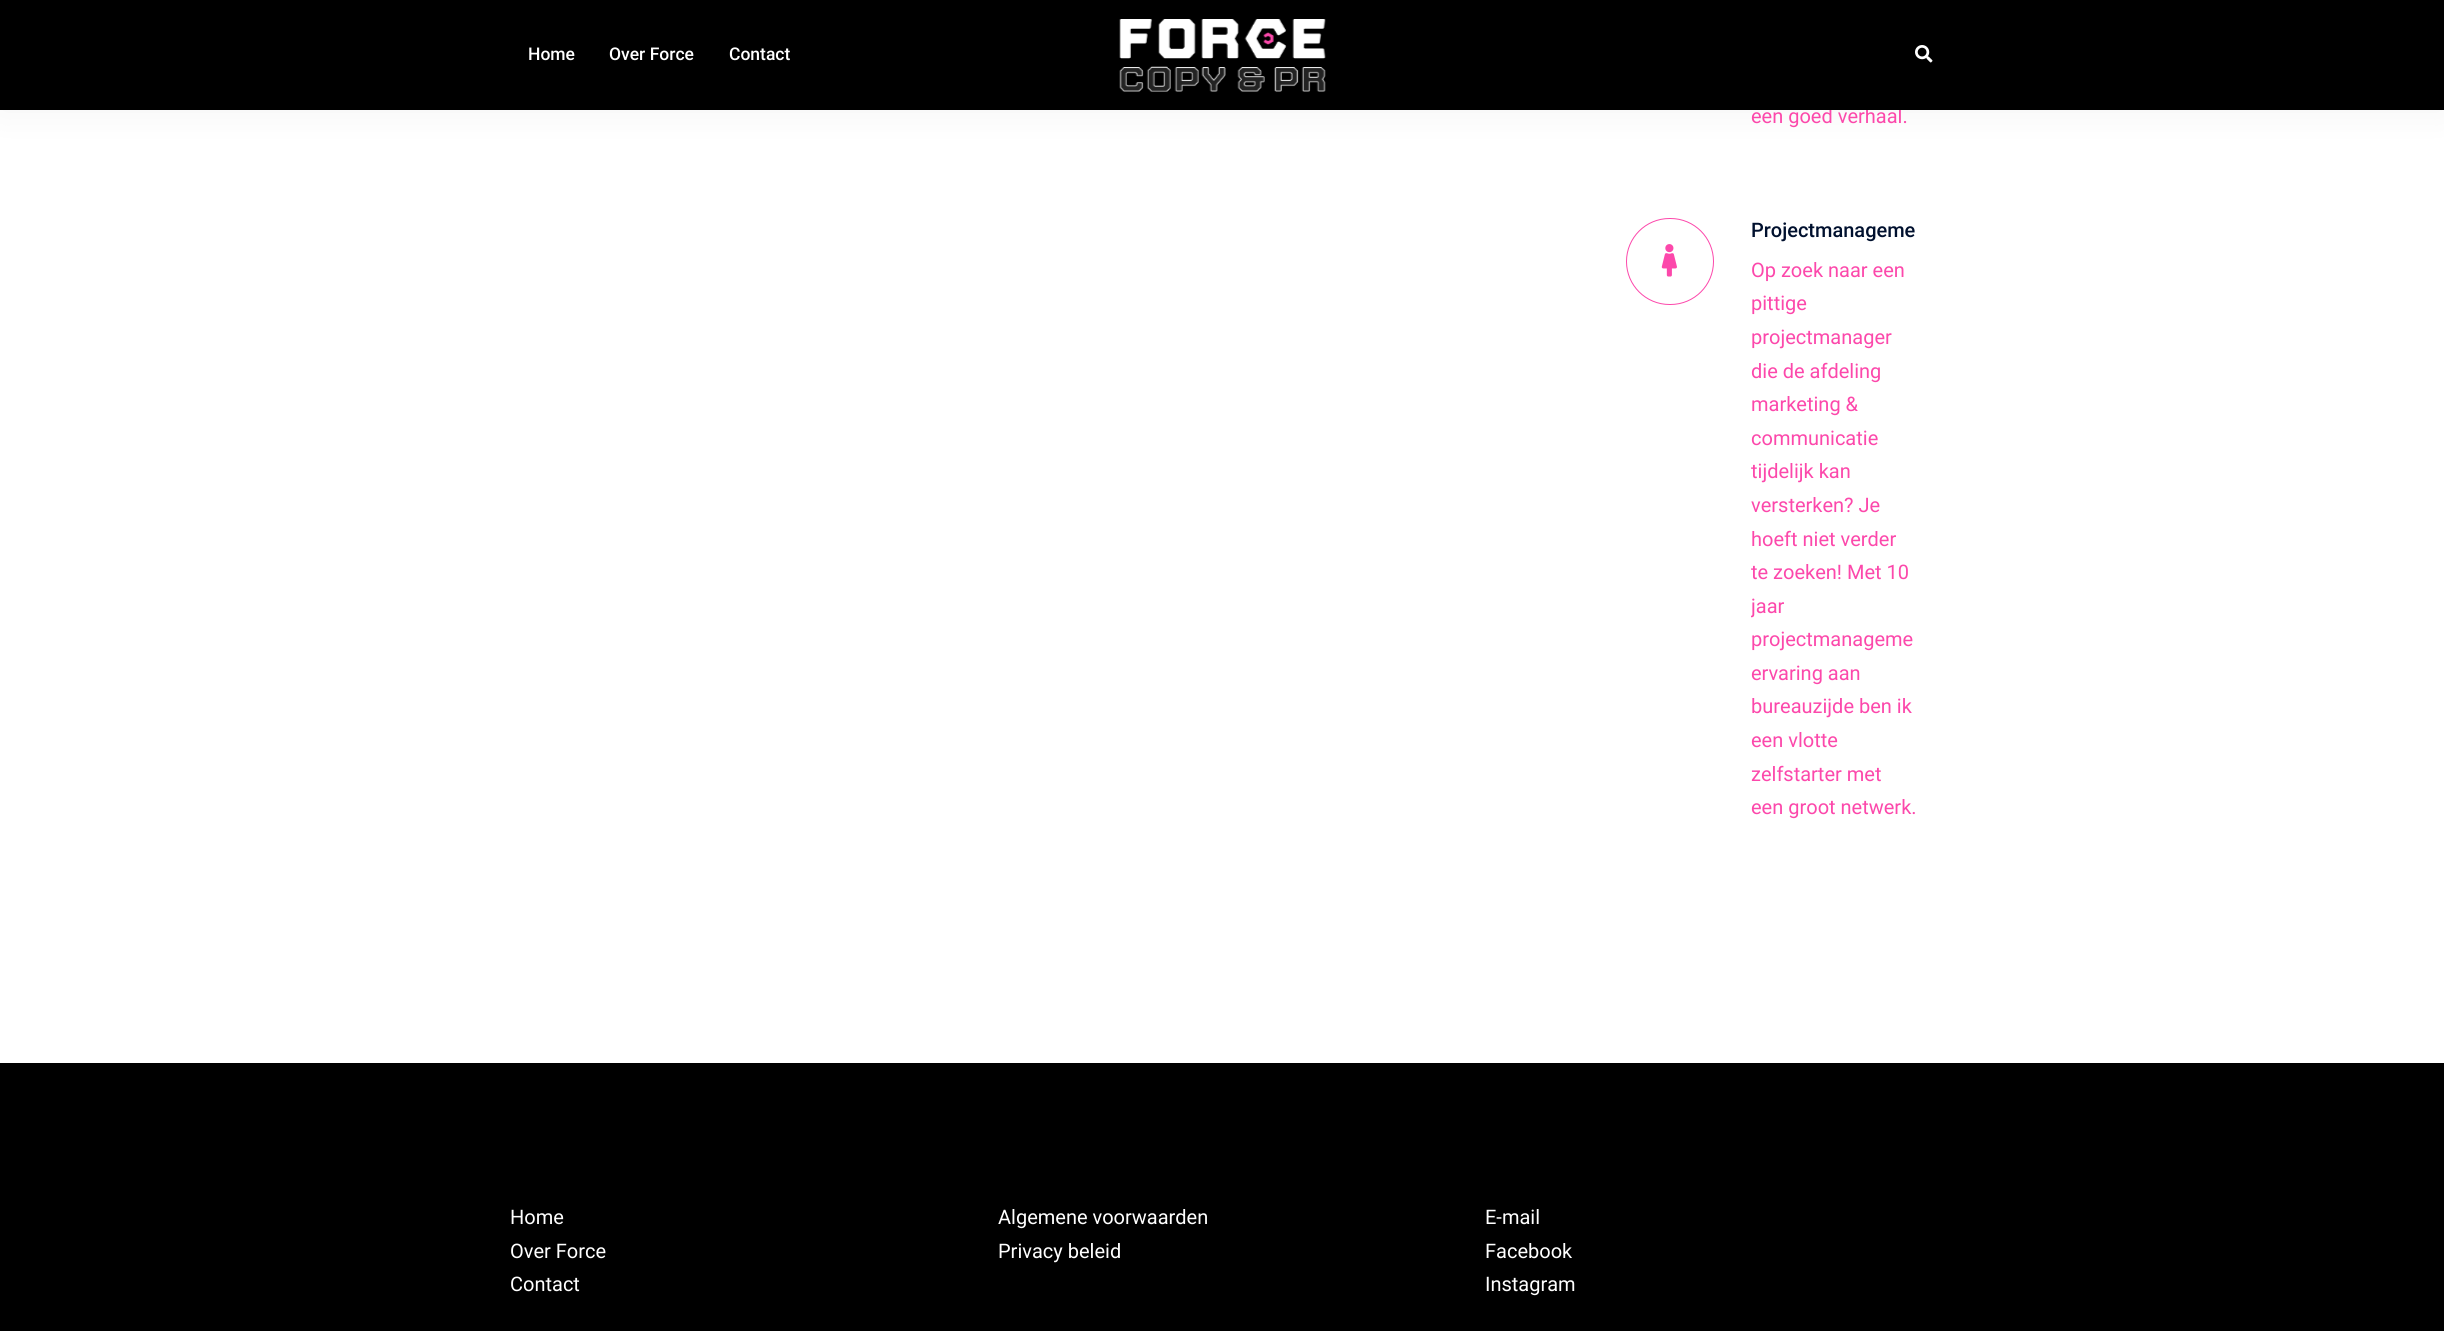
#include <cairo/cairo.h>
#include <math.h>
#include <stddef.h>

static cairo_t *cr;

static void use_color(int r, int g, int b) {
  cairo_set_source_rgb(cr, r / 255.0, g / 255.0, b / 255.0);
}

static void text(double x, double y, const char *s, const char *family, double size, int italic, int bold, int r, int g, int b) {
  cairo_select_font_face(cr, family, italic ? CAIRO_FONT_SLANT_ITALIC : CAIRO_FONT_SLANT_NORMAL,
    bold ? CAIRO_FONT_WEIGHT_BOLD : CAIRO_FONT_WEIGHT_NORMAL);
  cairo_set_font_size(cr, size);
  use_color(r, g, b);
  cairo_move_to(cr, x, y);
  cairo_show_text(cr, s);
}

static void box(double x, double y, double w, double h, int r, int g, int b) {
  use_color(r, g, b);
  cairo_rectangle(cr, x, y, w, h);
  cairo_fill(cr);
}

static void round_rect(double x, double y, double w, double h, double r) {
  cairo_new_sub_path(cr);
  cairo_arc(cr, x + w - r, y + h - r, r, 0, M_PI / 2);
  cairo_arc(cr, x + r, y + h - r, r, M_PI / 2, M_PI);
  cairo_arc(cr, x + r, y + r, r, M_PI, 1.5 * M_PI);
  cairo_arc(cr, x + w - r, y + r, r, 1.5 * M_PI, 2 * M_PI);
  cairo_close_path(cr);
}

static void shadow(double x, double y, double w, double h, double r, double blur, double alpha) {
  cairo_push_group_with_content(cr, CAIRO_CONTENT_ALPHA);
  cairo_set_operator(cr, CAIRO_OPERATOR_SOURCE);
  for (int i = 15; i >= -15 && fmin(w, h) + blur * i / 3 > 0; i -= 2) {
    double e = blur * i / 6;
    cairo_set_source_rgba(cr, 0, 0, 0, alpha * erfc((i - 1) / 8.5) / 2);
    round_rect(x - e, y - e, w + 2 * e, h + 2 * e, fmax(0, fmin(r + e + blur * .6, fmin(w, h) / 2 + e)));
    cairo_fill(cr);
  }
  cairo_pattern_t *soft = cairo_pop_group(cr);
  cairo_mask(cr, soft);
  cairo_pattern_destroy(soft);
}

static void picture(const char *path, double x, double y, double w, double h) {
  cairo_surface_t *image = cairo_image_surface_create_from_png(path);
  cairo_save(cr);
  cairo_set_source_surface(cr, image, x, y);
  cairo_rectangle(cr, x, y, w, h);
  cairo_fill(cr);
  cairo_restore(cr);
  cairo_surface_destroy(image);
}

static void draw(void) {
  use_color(255, 255, 255);
  cairo_paint(cr);
  use_color(0, 0, 0);
  shadow(0, 0, 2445, 110, 0, 19, 0.05);
  round_rect(1626.5, 218.5, 87, 86, 43);
  use_color(252, 72, 171);
  cairo_set_line_width(cr, 1);
  cairo_stroke(cr);
  picture("img_03.png", 1661, 244, 16, 33);
  box(0, 1063, 2444, 268, 0, 0, 0);
  text(1751, 123, "een goed verhaal.", "Roboto", 20, 0, 0, 252, 72, 171);
  box(0, 0, 2444, 110, 0, 0, 0);
  picture("img_02.png", 1915, 45, 18, 18);
  picture("img_01.png", 1119, 19, 207, 73);
  text(729, 60, "Contact", "Roboto Medium", 17.5, 0, 0, 255, 255, 255);
  text(609, 60, "Over Force", "Roboto Medium", 17.5, 0, 0, 255, 255, 255);
  text(528, 60, "Home", "Roboto Medium", 17.5, 0, 0, 255, 255, 255);
  text(1751, 237, "Projectmanageme", "Roboto Medium", 20, 0, 0, 0, 16, 46);
  text(1751, 277, "Op zoek naar een", "Roboto", 20, 0, 0, 252, 72, 171);
  text(1751, 310, "pittige", "Roboto", 20, 0, 0, 252, 72, 171);
  text(1751, 344, "projectmanager", "Roboto", 20, 0, 0, 252, 72, 171);
  text(1751, 378, "die de afdeling", "Roboto", 20, 0, 0, 252, 72, 171);
  text(1751, 411, "marketing &", "Roboto", 20, 0, 0, 252, 72, 171);
  text(1751, 445, "communicatie", "Roboto", 20, 0, 0, 252, 72, 171);
  text(1751, 478, "tijdelijk kan", "Roboto", 20, 0, 0, 252, 72, 171);
  text(1751, 512, "versterken? Je", "Roboto", 20, 0, 0, 252, 72, 171);
  text(1751, 546, "hoeft niet verder", "Roboto", 20, 0, 0, 252, 72, 171);
  text(1751, 579, "te zoeken! Met 10", "Roboto", 20, 0, 0, 252, 72, 171);
  cairo_save(cr);
  cairo_rectangle(cr, 1751, 209, 165, 616);
  cairo_clip(cr);
  text(1751, 613, "jaar", "Roboto", 20, 0, 0, 252, 72, 171);
  cairo_restore(cr);
  text(1751, 646, "projectmanageme", "Roboto", 20, 0, 0, 252, 72, 171);
  text(1751, 680, "ervaring aan", "Roboto", 20, 0, 0, 252, 72, 171);
  text(1751, 713, "bureauzijde ben ik", "Roboto", 20, 0, 0, 252, 72, 171);
  text(1751, 747, "een vlotte", "Roboto", 20, 0, 0, 252, 72, 171);
  text(1751, 781, "zelfstarter met", "Roboto", 20, 0, 0, 252, 72, 171);
  text(1751, 814, "een groot netwerk.", "Roboto", 20, 0, 0, 252, 72, 171);
  text(510, 1224, "Home", "Roboto", 20, 0, 0, 255, 255, 255);
  text(510, 1258, "Over Force", "Roboto", 20, 0, 0, 255, 255, 255);
  text(510, 1291, "Contact", "Roboto", 20, 0, 0, 255, 255, 255);
  text(998, 1224, "Algemene voorwaarden", "Roboto", 20, 0, 0, 255, 255, 255);
  text(998, 1258, "Privacy beleid", "Roboto", 20, 0, 0, 255, 255, 255);
  text(1485, 1224, "E-mail", "Roboto", 20, 0, 0, 255, 255, 255);
  text(1485, 1258, "Facebook", "Roboto", 20, 0, 0, 255, 255, 255);
  text(1485, 1291, "Instagram", "Roboto", 20, 0, 0, 255, 255, 255);
}

int main(void) {
  cairo_surface_t *surface = cairo_image_surface_create(CAIRO_FORMAT_RGB24, 2444, 1331);
  cr = cairo_create(surface);
  cairo_font_options_t *options = cairo_font_options_create();
  cairo_font_options_set_hint_metrics(options, CAIRO_HINT_METRICS_OFF);
  cairo_font_options_set_hint_style(options, CAIRO_HINT_STYLE_NONE);
  cairo_set_font_options(cr, options);
  cairo_set_miter_limit(cr, 4);
  draw();
  cairo_surface_write_to_png(surface, "out.png");
  cairo_font_options_destroy(options);
  cairo_destroy(cr);
  cairo_surface_destroy(surface);
  return 0;
}
